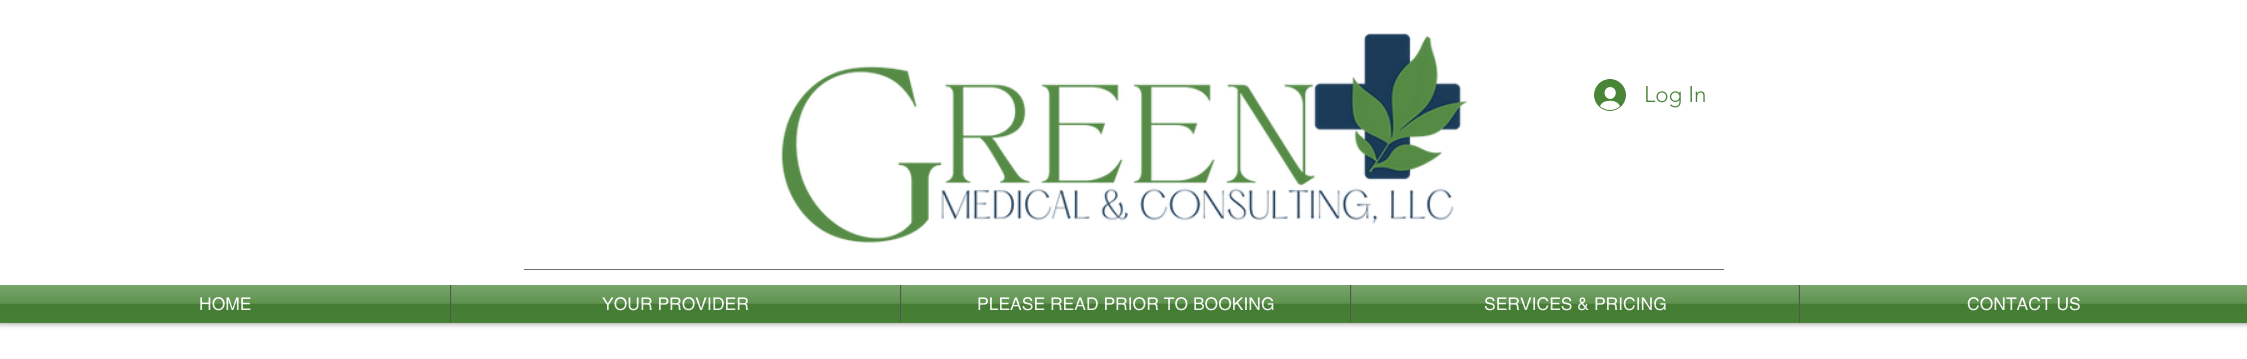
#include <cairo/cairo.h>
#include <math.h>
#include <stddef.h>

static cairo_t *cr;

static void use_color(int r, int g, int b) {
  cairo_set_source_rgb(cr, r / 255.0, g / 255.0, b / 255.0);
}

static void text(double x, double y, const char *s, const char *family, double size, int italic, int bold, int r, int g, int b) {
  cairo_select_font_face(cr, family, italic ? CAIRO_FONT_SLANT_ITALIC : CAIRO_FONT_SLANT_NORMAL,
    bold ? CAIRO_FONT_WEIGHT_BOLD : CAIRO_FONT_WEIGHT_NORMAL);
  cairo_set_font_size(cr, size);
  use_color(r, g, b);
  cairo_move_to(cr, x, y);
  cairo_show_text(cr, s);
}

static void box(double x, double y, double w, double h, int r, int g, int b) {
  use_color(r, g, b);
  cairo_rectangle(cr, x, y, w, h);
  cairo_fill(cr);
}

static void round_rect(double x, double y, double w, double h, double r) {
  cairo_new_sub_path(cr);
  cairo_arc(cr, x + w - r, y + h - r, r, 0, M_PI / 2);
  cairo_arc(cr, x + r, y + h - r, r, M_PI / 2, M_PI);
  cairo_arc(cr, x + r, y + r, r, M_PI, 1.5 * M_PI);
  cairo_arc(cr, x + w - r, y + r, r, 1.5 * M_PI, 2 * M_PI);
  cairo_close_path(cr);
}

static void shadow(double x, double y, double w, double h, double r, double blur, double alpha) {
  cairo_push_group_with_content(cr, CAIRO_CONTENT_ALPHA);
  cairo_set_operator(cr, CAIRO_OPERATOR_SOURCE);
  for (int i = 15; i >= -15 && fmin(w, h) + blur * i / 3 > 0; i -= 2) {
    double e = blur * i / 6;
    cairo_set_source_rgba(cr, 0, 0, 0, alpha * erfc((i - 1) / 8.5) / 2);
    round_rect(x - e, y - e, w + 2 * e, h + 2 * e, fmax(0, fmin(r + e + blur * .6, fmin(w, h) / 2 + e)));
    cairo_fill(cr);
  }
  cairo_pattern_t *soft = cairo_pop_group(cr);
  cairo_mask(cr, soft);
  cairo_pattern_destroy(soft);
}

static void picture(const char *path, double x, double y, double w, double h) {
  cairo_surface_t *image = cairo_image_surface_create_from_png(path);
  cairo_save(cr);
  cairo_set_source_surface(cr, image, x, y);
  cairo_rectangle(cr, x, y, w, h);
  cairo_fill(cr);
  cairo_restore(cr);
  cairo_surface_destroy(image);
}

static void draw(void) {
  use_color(255, 255, 255);
  cairo_paint(cr);
  use_color(0, 0, 0);
  shadow(0, 0, 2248, 323, 0, 3, 0.5);
  box(0, 0, 2247, 285, 255, 255, 255);
  picture("img_01.png", 781, 33, 687, 210);
  picture("img_02.png", 1594, 79, 32, 32);
  box(524, 269, 1200, 1, 111, 111, 111);
  box(0, 285, 450, 38, 73, 133, 55);
  box(451, 285, 449, 38, 73, 133, 55);
  box(450, 285, 1, 38, 85, 85, 85);
  box(901, 285, 449, 38, 73, 133, 55);
  box(900, 285, 1, 38, 85, 85, 85);
  box(1351, 285, 448, 38, 73, 133, 55);
  box(1350, 285, 1, 38, 85, 85, 85);
  box(1800, 285, 447, 38, 73, 133, 55);
  box(1799, 285, 1, 38, 85, 85, 85);
  text(1644, 102, "Log In", "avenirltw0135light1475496 Light", 22.5, 0, 0, 73, 133, 55);
  text(199, 310, "HOME", "helvetica", 17.5, 0, 0, 255, 255, 255);
  picture("img_03.png", 0, 285, 450, 37);
  text(602, 310, "YOUR PROVIDER", "helvetica", 17.5, 0, 0, 255, 255, 255);
  picture("img_04.png", 451, 285, 449, 37);
  text(977, 310, "PLEASE READ PRIOR TO BOOKING", "helvetica", 17.5, 0, 0, 255, 255, 255);
  picture("img_05.png", 901, 285, 449, 37);
  text(1484, 310, "SERVICES & PRICING", "helvetica", 17.5, 0, 0, 255, 255, 255);
  picture("img_06.png", 1351, 285, 448, 37);
  text(1967, 310, "CONTACT US", "helvetica", 17.5, 0, 0, 255, 255, 255);
  picture("img_07.png", 1800, 285, 447, 37);
}

int main(void) {
  cairo_surface_t *surface = cairo_image_surface_create(CAIRO_FORMAT_RGB24, 2247, 359);
  cr = cairo_create(surface);
  cairo_font_options_t *options = cairo_font_options_create();
  cairo_font_options_set_hint_metrics(options, CAIRO_HINT_METRICS_OFF);
  cairo_font_options_set_hint_style(options, CAIRO_HINT_STYLE_NONE);
  cairo_set_font_options(cr, options);
  cairo_set_miter_limit(cr, 4);
  draw();
  cairo_surface_write_to_png(surface, "out.png");
  cairo_font_options_destroy(options);
  cairo_destroy(cr);
  cairo_surface_destroy(surface);
  return 0;
}
